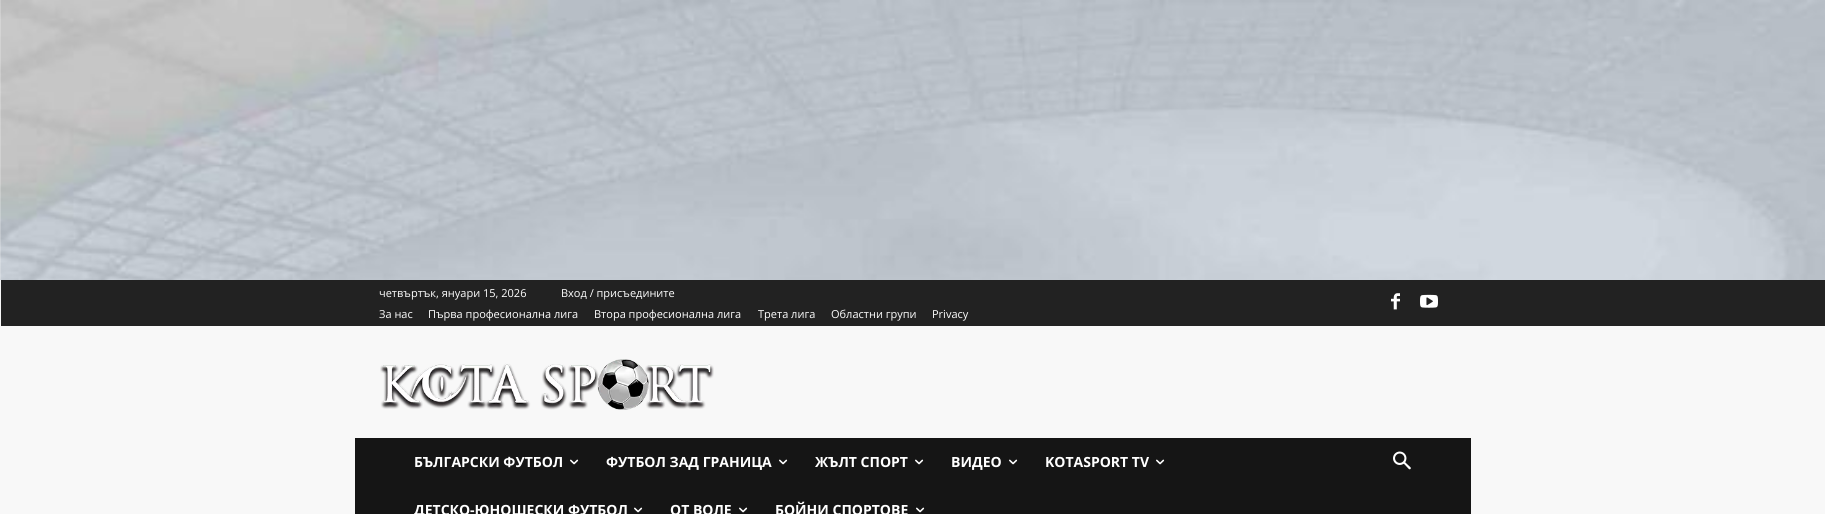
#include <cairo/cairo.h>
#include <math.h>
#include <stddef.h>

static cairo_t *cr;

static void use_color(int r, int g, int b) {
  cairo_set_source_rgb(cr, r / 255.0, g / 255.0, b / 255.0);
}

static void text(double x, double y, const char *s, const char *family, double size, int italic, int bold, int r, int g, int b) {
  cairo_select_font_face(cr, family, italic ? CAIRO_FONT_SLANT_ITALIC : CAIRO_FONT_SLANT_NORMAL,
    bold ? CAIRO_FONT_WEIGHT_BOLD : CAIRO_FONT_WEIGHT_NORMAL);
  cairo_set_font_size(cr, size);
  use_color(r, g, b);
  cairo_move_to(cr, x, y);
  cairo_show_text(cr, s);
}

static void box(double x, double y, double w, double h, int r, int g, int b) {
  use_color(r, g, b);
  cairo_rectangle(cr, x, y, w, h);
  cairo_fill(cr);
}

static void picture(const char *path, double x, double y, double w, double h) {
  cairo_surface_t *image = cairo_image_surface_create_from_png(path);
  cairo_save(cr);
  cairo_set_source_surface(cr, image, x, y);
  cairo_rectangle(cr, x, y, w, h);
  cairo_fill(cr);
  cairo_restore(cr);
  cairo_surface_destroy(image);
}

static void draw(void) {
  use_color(255, 255, 255);
  cairo_paint(cr);
  picture("img_01.png", 0, 0, 1825, 280);
  box(0, 280, 1825, 234, 248, 248, 248);
  box(1, 280, 1824, 46, 34, 34, 34);
  picture("img_02.png", 1391, 293, 9, 17);
  picture("img_03.png", 1420, 294, 18, 14);
  picture("img_04.png", 380, 359, 334, 51);
  box(355, 438, 1116, 76, 21, 21, 21);
  picture("img_05.png", 570, 459, 9, 6);
  picture("img_05.png", 779, 459, 9, 6);
  picture("img_05.png", 915, 459, 9, 6);
  picture("img_05.png", 1009, 459, 9, 6);
  picture("img_05.png", 1156, 459, 9, 6);
  picture("img_05.png", 634, 507, 9, 6);
  picture("img_05.png", 739, 507, 9, 6);
  picture("img_05.png", 916, 507, 9, 6);
  picture("img_06.png", 1393, 451, 18, 19);
  text(379, 297, "четвъртък, януари 15, 2026", "Open Sans", 11, 0, 0, 255, 255, 255);
  text(561, 297, "Вход / присъедините", "Open Sans", 11, 0, 0, 255, 255, 255);
  text(379, 318, "За нас", "Open Sans", 11, 0, 0, 255, 255, 255);
  text(428, 318, "Първа професионална лига", "Open Sans", 11, 0, 0, 255, 255, 255);
  text(594, 318, "Втора професионална лига", "Open Sans", 11, 0, 0, 255, 255, 255);
  text(758, 318, "Трета лига", "Open Sans", 11, 0, 0, 255, 255, 255);
  text(831, 318, "Областни групи", "Open Sans", 11, 0, 0, 255, 255, 255);
  text(932, 318, "Privacy", "Open Sans", 11, 0, 0, 255, 255, 255);
  text(414, 467, "БЪЛГАРСКИ ФУТБОЛ", "Open Sans", 14, 0, 1, 255, 255, 255);
  text(606, 467, "ФУТБОЛ ЗАД ГРАНИЦА", "Open Sans", 14, 0, 1, 255, 255, 255);
  text(815, 467, "ЖЪЛТ СПОРТ", "Open Sans", 14, 0, 1, 255, 255, 255);
  text(951, 467, "ВИДЕО", "Open Sans", 14, 0, 1, 255, 255, 255);
  text(1045, 467, "KOTASPORT TV", "Open Sans", 14, 0, 1, 255, 255, 255);
  text(414, 515, "ДЕТСКО-ЮНОШЕСКИ ФУТБОЛ", "Open Sans", 14, 0, 1, 255, 255, 255);
  text(670, 515, "ОТ ВОЛЕ", "Open Sans", 14, 0, 1, 255, 255, 255);
  text(775, 515, "БОЙНИ СПОРТОВЕ", "Open Sans", 14, 0, 1, 255, 255, 255);
}

int main(void) {
  cairo_surface_t *surface = cairo_image_surface_create(CAIRO_FORMAT_RGB24, 1825, 514);
  cr = cairo_create(surface);
  cairo_font_options_t *options = cairo_font_options_create();
  cairo_font_options_set_hint_metrics(options, CAIRO_HINT_METRICS_OFF);
  cairo_font_options_set_hint_style(options, CAIRO_HINT_STYLE_NONE);
  cairo_set_font_options(cr, options);
  cairo_set_miter_limit(cr, 4);
  draw();
  cairo_surface_write_to_png(surface, "out.png");
  cairo_font_options_destroy(options);
  cairo_destroy(cr);
  cairo_surface_destroy(surface);
  return 0;
}
